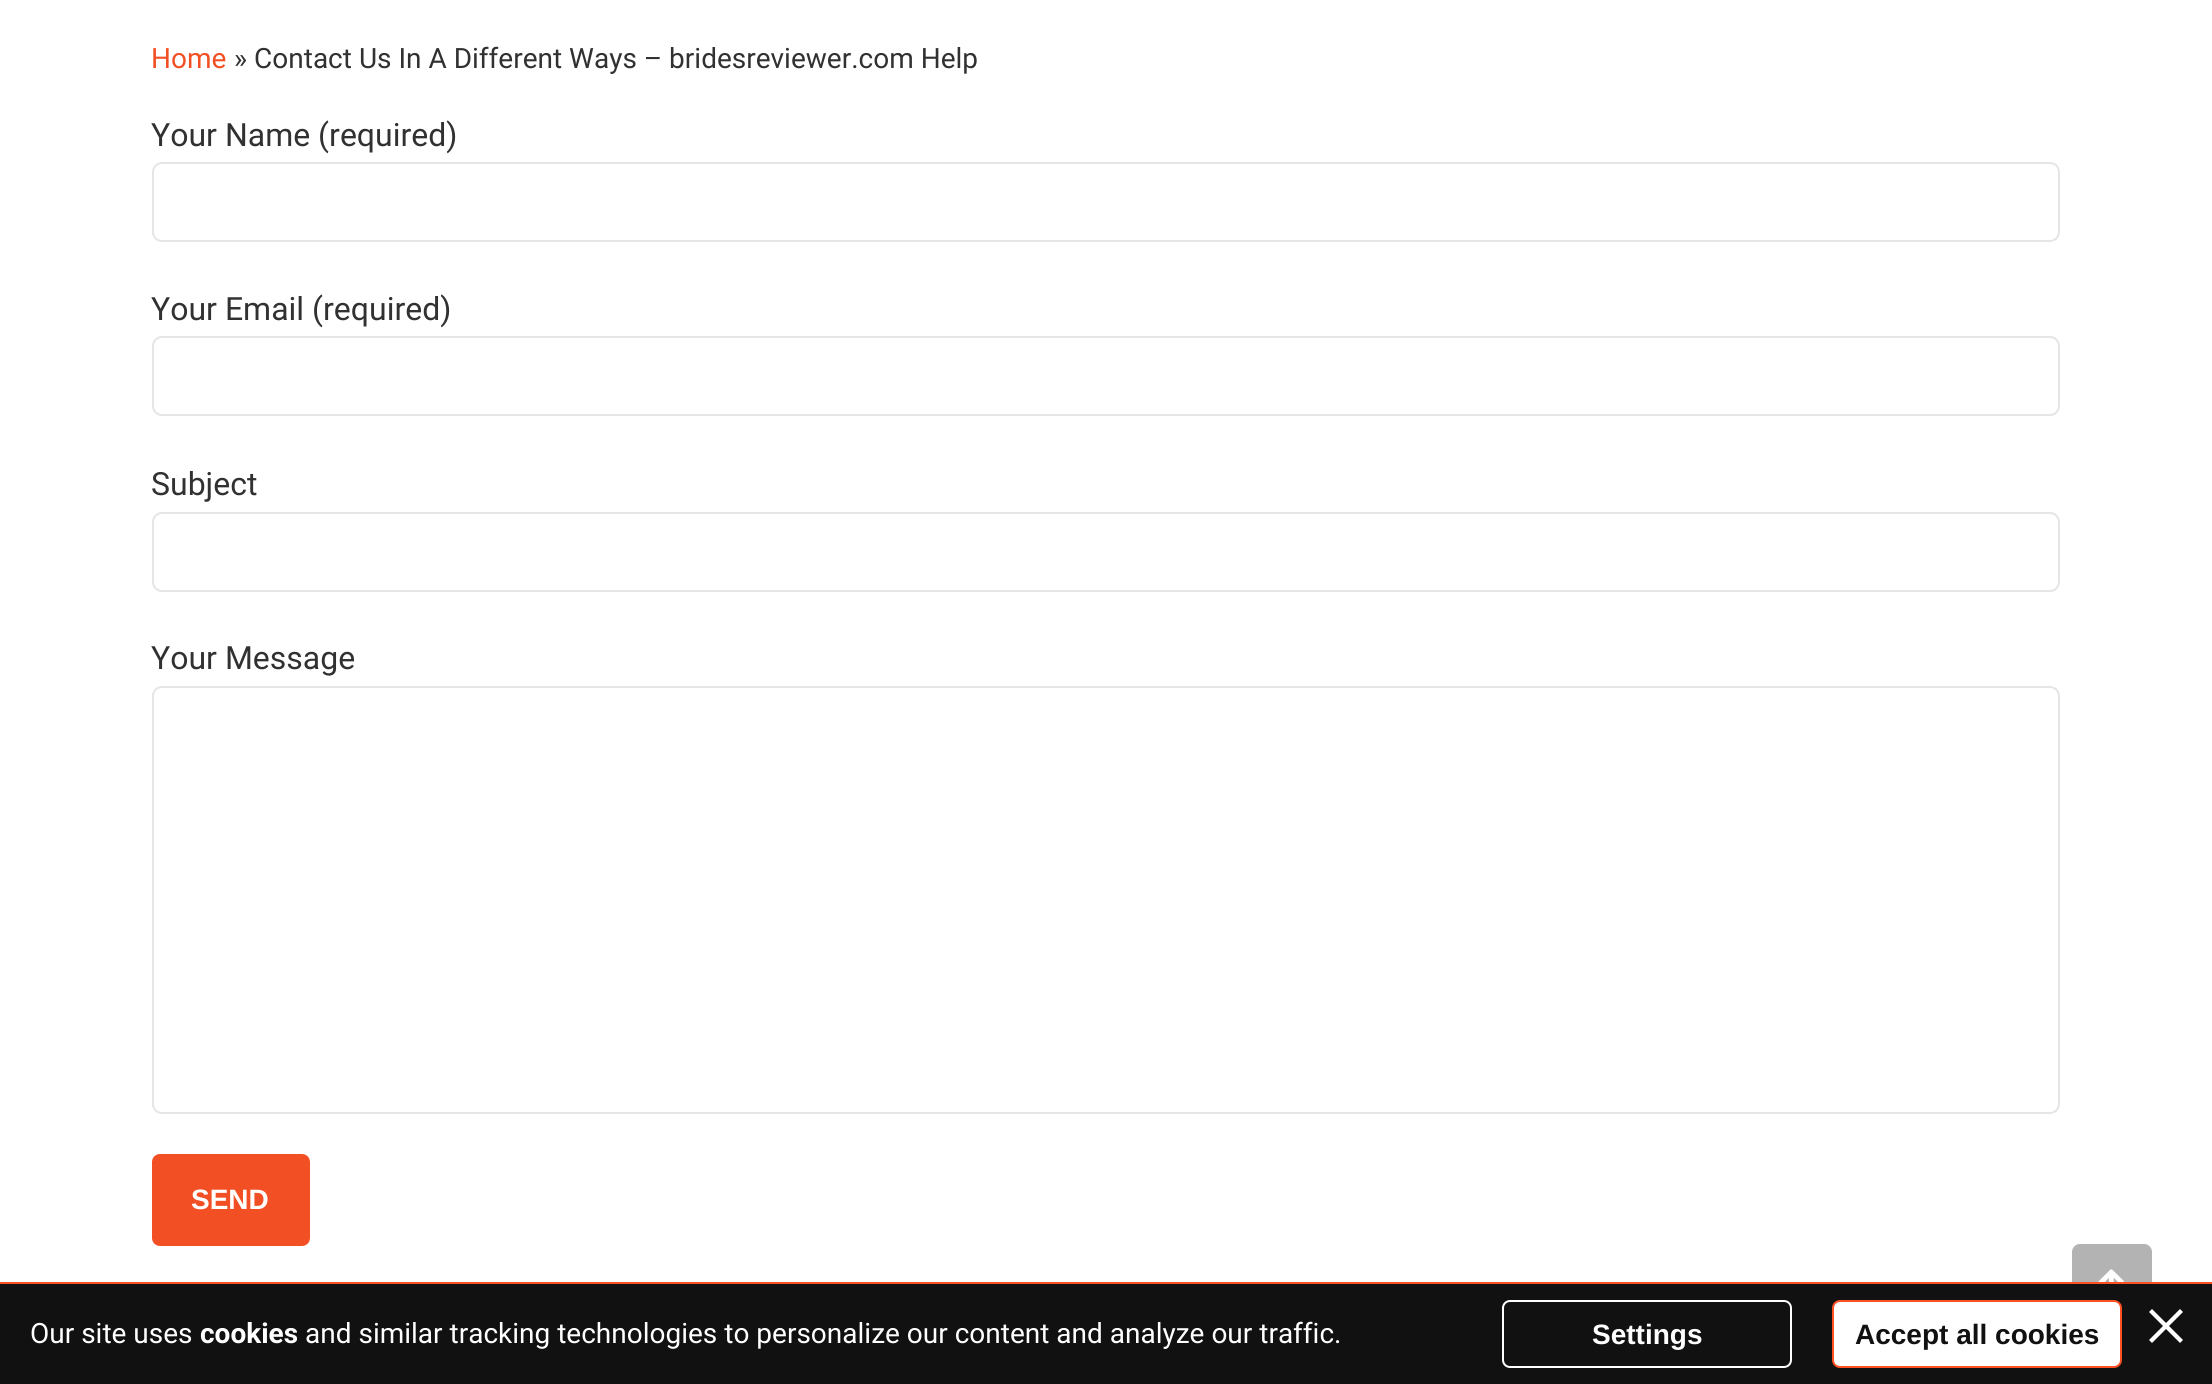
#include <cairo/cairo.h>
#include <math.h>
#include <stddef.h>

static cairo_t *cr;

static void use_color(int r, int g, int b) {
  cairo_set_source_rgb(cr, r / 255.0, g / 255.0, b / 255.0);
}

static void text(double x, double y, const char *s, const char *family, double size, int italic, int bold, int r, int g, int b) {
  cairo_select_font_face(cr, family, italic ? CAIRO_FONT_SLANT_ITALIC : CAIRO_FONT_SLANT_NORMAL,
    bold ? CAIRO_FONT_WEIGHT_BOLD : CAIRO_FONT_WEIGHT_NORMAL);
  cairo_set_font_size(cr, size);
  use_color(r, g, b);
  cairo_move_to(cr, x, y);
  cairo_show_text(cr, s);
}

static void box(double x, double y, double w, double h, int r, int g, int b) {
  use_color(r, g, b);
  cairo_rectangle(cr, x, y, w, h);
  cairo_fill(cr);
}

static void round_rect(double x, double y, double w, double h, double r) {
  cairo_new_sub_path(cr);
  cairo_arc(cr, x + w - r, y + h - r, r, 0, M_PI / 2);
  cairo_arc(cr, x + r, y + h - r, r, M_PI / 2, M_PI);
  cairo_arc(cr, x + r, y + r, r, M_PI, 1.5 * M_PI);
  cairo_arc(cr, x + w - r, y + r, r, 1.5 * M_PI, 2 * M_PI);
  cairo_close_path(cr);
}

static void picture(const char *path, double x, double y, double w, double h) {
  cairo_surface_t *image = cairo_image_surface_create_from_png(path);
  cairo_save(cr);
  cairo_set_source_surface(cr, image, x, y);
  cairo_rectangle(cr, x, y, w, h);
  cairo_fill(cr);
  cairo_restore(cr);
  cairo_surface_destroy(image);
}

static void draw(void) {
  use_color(255, 255, 255);
  cairo_paint(cr);
  round_rect(153, 163, 1906, 78, 9);
  use_color(229, 229, 229);
  cairo_stroke(cr);
  round_rect(153, 337, 1906, 78, 9);
  cairo_stroke(cr);
  round_rect(153, 513, 1906, 78, 9);
  cairo_stroke(cr);
  round_rect(153, 687, 1906, 426, 9);
  cairo_stroke(cr);
  use_color(242, 80, 36);
  round_rect(152, 1154, 158, 92, 8);
  cairo_fill(cr);
  use_color(179, 179, 179);
  round_rect(2072, 1244, 80, 80, 8);
  cairo_fill(cr);
  picture("img_01.png", 2098, 1269, 26, 13);
  box(0, 1284, 2212, 100, 17, 17, 17);
  box(0, 1282, 2212, 2, 254, 80, 35);
  round_rect(1503, 1301, 288, 66, 7);
  use_color(255, 255, 255);
  cairo_stroke(cr);
  round_rect(1833, 1301, 288, 66, 7);
  cairo_fill_preserve(cr);
  use_color(254, 80, 35);
  cairo_stroke(cr);
  use_color(255, 255, 255);
  cairo_new_path(cr);
  cairo_move_to(cr, 2180, 1309);
  cairo_line_to(cr, 2183, 1312);
  cairo_line_to(cr, 2152, 1343);
  cairo_line_to(cr, 2149, 1340);
  cairo_close_path(cr);
  cairo_fill(cr);
  cairo_new_path(cr);
  cairo_move_to(cr, 2149, 1312);
  cairo_line_to(cr, 2152, 1309);
  cairo_line_to(cr, 2183, 1340);
  cairo_line_to(cr, 2180, 1343);
  cairo_close_path(cr);
  cairo_fill(cr);
  text(151, 68, "Home", "Roboto", 28, 0, 0, 242, 80, 36);
  text(234, 68, "» Contact Us In A Different Ways – bridesreviewer.com Help", "Roboto", 28, 0, 0, 49, 49, 49);
  text(151, 146, "Your Name (required)", "Roboto", 32, 0, 0, 49, 49, 49);
  text(151, 320, "Your Email (required)", "Roboto", 32, 0, 0, 49, 49, 49);
  text(151, 495, "Subject", "Roboto", 32, 0, 0, 49, 49, 49);
  text(151, 669, "Your Message", "Roboto", 32, 0, 0, 49, 49, 49);
  text(191, 1209, "SEND", "Liberation Sans", 28, 0, 1, 255, 255, 255);
  text(30, 1343, "Our site uses", "Roboto", 28, 0, 0, 255, 255, 255);
  text(200, 1343, "cookies", "Roboto", 28, 0, 1, 255, 255, 255);
  text(305, 1343, "and similar tracking technologies to personalize our content and analyze our traffic.", "Roboto", 28, 0, 0, 255, 255, 255);
  text(1592, 1344, "Settings", "Liberation Sans", 28, 0, 1, 255, 255, 255);
  text(1855, 1344, "Accept all cookies", "Liberation Sans", 28, 0, 1, 17, 17, 17);
}

int main(void) {
  cairo_surface_t *surface = cairo_image_surface_create(CAIRO_FORMAT_RGB24, 2212, 1384);
  cr = cairo_create(surface);
  cairo_font_options_t *options = cairo_font_options_create();
  cairo_font_options_set_hint_metrics(options, CAIRO_HINT_METRICS_OFF);
  cairo_font_options_set_hint_style(options, CAIRO_HINT_STYLE_NONE);
  cairo_set_font_options(cr, options);
  cairo_set_miter_limit(cr, 4);
  draw();
  cairo_surface_write_to_png(surface, "out.png");
  cairo_font_options_destroy(options);
  cairo_destroy(cr);
  cairo_surface_destroy(surface);
  return 0;
}
